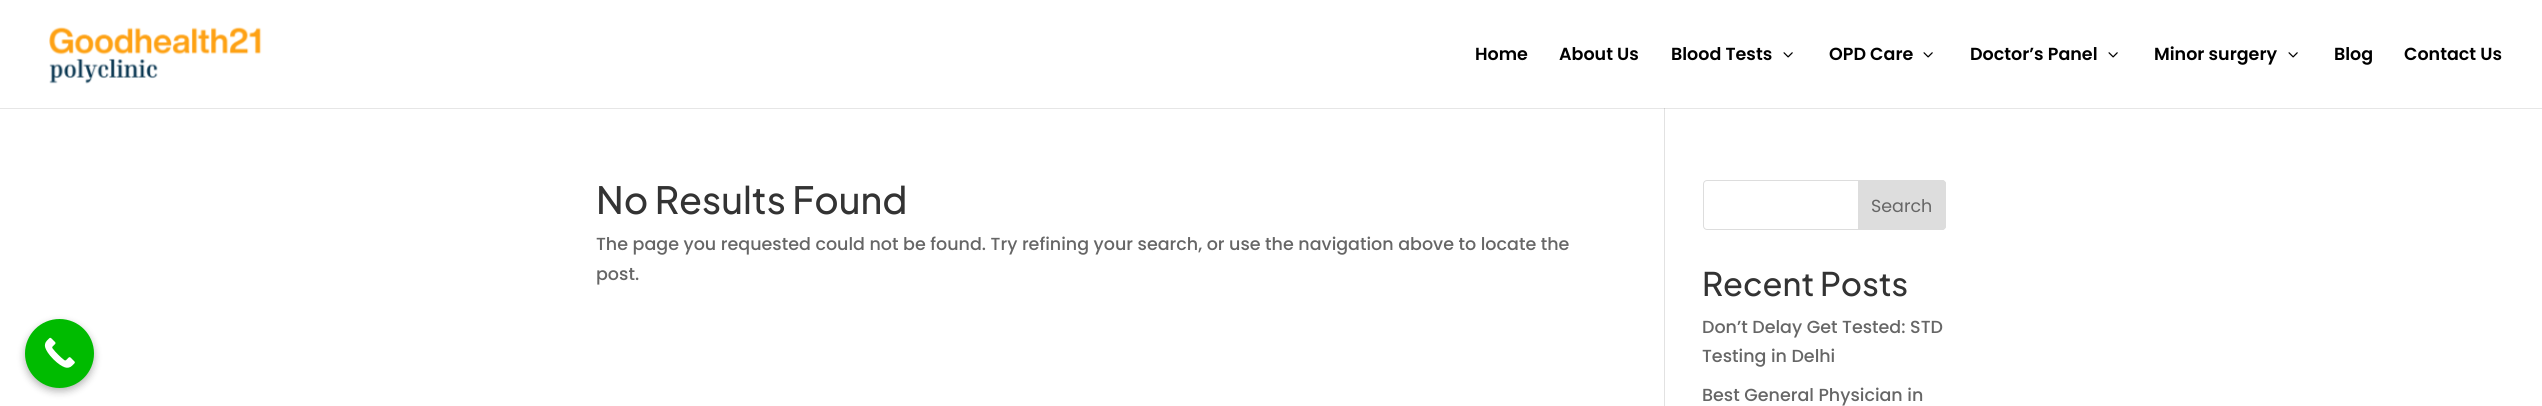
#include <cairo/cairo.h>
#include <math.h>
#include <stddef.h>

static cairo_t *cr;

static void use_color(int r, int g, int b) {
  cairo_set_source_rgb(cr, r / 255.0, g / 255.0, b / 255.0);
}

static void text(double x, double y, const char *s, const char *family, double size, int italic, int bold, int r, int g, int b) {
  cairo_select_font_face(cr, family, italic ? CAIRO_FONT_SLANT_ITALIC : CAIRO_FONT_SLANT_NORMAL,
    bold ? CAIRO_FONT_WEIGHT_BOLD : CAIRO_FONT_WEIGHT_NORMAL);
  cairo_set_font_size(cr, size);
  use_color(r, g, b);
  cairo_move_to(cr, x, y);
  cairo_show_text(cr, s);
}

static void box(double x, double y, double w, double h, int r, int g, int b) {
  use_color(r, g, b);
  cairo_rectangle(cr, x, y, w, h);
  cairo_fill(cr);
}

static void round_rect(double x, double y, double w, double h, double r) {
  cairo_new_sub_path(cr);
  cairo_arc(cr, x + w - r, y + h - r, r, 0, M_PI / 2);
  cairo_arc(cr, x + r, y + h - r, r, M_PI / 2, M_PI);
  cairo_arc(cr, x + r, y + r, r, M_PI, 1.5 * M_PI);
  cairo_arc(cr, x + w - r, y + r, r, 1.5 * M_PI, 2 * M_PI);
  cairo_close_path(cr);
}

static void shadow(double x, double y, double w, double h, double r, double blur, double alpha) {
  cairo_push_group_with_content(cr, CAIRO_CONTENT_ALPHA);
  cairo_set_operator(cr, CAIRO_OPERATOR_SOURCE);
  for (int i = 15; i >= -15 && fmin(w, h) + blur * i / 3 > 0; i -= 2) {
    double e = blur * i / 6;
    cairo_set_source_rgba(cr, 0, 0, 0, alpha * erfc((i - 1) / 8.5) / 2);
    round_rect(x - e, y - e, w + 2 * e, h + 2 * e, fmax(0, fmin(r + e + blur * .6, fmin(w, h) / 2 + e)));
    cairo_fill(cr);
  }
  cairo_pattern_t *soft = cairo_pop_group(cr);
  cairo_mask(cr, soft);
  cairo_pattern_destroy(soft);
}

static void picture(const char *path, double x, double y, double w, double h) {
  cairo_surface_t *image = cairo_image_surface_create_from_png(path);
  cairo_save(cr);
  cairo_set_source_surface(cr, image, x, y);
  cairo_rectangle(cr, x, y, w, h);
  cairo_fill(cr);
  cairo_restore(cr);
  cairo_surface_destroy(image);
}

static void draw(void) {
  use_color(255, 255, 255);
  cairo_paint(cr);
  use_color(0, 0, 0);
  shadow(25, 323, 69, 68, 34, 4, 0.3);
  use_color(0, 187, 0);
  cairo_arc(cr, 59.5, 353.5, 34.5, 0, 2 * M_PI);
  cairo_fill(cr);
  picture("img_01.png", 44, 337, 31, 31);
  box(1664, 108, 1, 298, 226, 226, 226);
  cairo_set_source_rgba(cr, 0, 0, 0, 0.1);
  cairo_new_path(cr);
  cairo_move_to(cr, 0, 108);
  cairo_line_to(cr, 0, 109);
  cairo_line_to(cr, 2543, 109);
  cairo_line_to(cr, 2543, 1);
  cairo_line_to(cr, 2542, 1);
  cairo_line_to(cr, 2542, 108);
  cairo_close_path(cr);
  cairo_fill(cr);
  picture("img_02.png", 49, 27, 213, 57);
  picture("img_03.png", 1783, 52, 10, 6);
  picture("img_03.png", 1923, 52, 10, 6);
  picture("img_03.png", 2108, 52, 10, 6);
  picture("img_03.png", 2288, 52, 10, 6);
  round_rect(1703.5, 180.5, 242, 49, 3.5);
  use_color(221, 221, 221);
  cairo_set_line_width(cr, 1);
  cairo_stroke(cr);
  cairo_new_path(cr);
  cairo_move_to(cr, 1858.5, 180.5);
  cairo_line_to(cr, 1942, 180.5);
  cairo_curve_to(cr, 1944, 180.5, 1945.5, 182, 1945.5, 184);
  cairo_line_to(cr, 1945.5, 226);
  cairo_curve_to(cr, 1945.5, 228, 1944, 229.5, 1942, 229.5);
  cairo_line_to(cr, 1858.5, 229.5);
  cairo_close_path(cr);
  cairo_fill_preserve(cr);
  cairo_stroke(cr);
  text(1475, 60, "Home", "Poppins SemiBold", 17.5, 0, 0, 0, 0, 0);
  text(1559, 60, "About Us", "Poppins SemiBold", 17.5, 0, 0, 0, 0, 0);
  text(1671, 60, "Blood Tests", "Poppins SemiBold", 17.5, 0, 0, 0, 0, 0);
  text(1829, 60, "OPD Care", "Poppins SemiBold", 17.5, 0, 0, 0, 0, 0);
  text(1970, 60, "Doctor’s Panel", "Poppins SemiBold", 17.5, 0, 0, 0, 0, 0);
  text(2154, 60, "Minor surgery", "Poppins SemiBold", 17.5, 0, 0, 0, 0, 0);
  text(2334, 60, "Blog", "Poppins SemiBold", 17.5, 0, 0, 0, 0, 0);
  text(2404, 60, "Contact Us", "Poppins SemiBold", 17.5, 0, 0, 0, 0, 0);
  text(596, 214, "No Results Found", "Plus Jakarta Sans Medium", 37.5, 0, 0, 51, 51, 51);
  text(596, 250, "The page you requested could not be found. Try refining your search, or use the navigation above to locate the", "Poppins Medium", 17.5, 0, 0, 102, 102, 102);
  text(596, 280, "post.", "Poppins Medium", 17.5, 0, 0, 102, 102, 102);
  text(1871, 212, "Search", "Poppins", 17.5, 0, 0, 102, 102, 102);
  text(1702, 296, "Recent Posts", "Plus Jakarta Sans Medium", 32.5, 0, 0, 51, 51, 51);
  text(1702, 333, "Don’t Delay Get Tested: STD", "Poppins Medium", 17.5, 0, 0, 102, 102, 102);
  text(1702, 362, "Testing in Delhi", "Poppins Medium", 17.5, 0, 0, 102, 102, 102);
  text(1702, 401, "Best General Physician in", "Poppins Medium", 17.5, 0, 0, 102, 102, 102);
}

int main(void) {
  cairo_surface_t *surface = cairo_image_surface_create(CAIRO_FORMAT_RGB24, 2542, 406);
  cr = cairo_create(surface);
  cairo_font_options_t *options = cairo_font_options_create();
  cairo_font_options_set_hint_metrics(options, CAIRO_HINT_METRICS_OFF);
  cairo_font_options_set_hint_style(options, CAIRO_HINT_STYLE_NONE);
  cairo_set_font_options(cr, options);
  cairo_set_miter_limit(cr, 4);
  draw();
  cairo_surface_write_to_png(surface, "out.png");
  cairo_font_options_destroy(options);
  cairo_destroy(cr);
  cairo_surface_destroy(surface);
  return 0;
}
